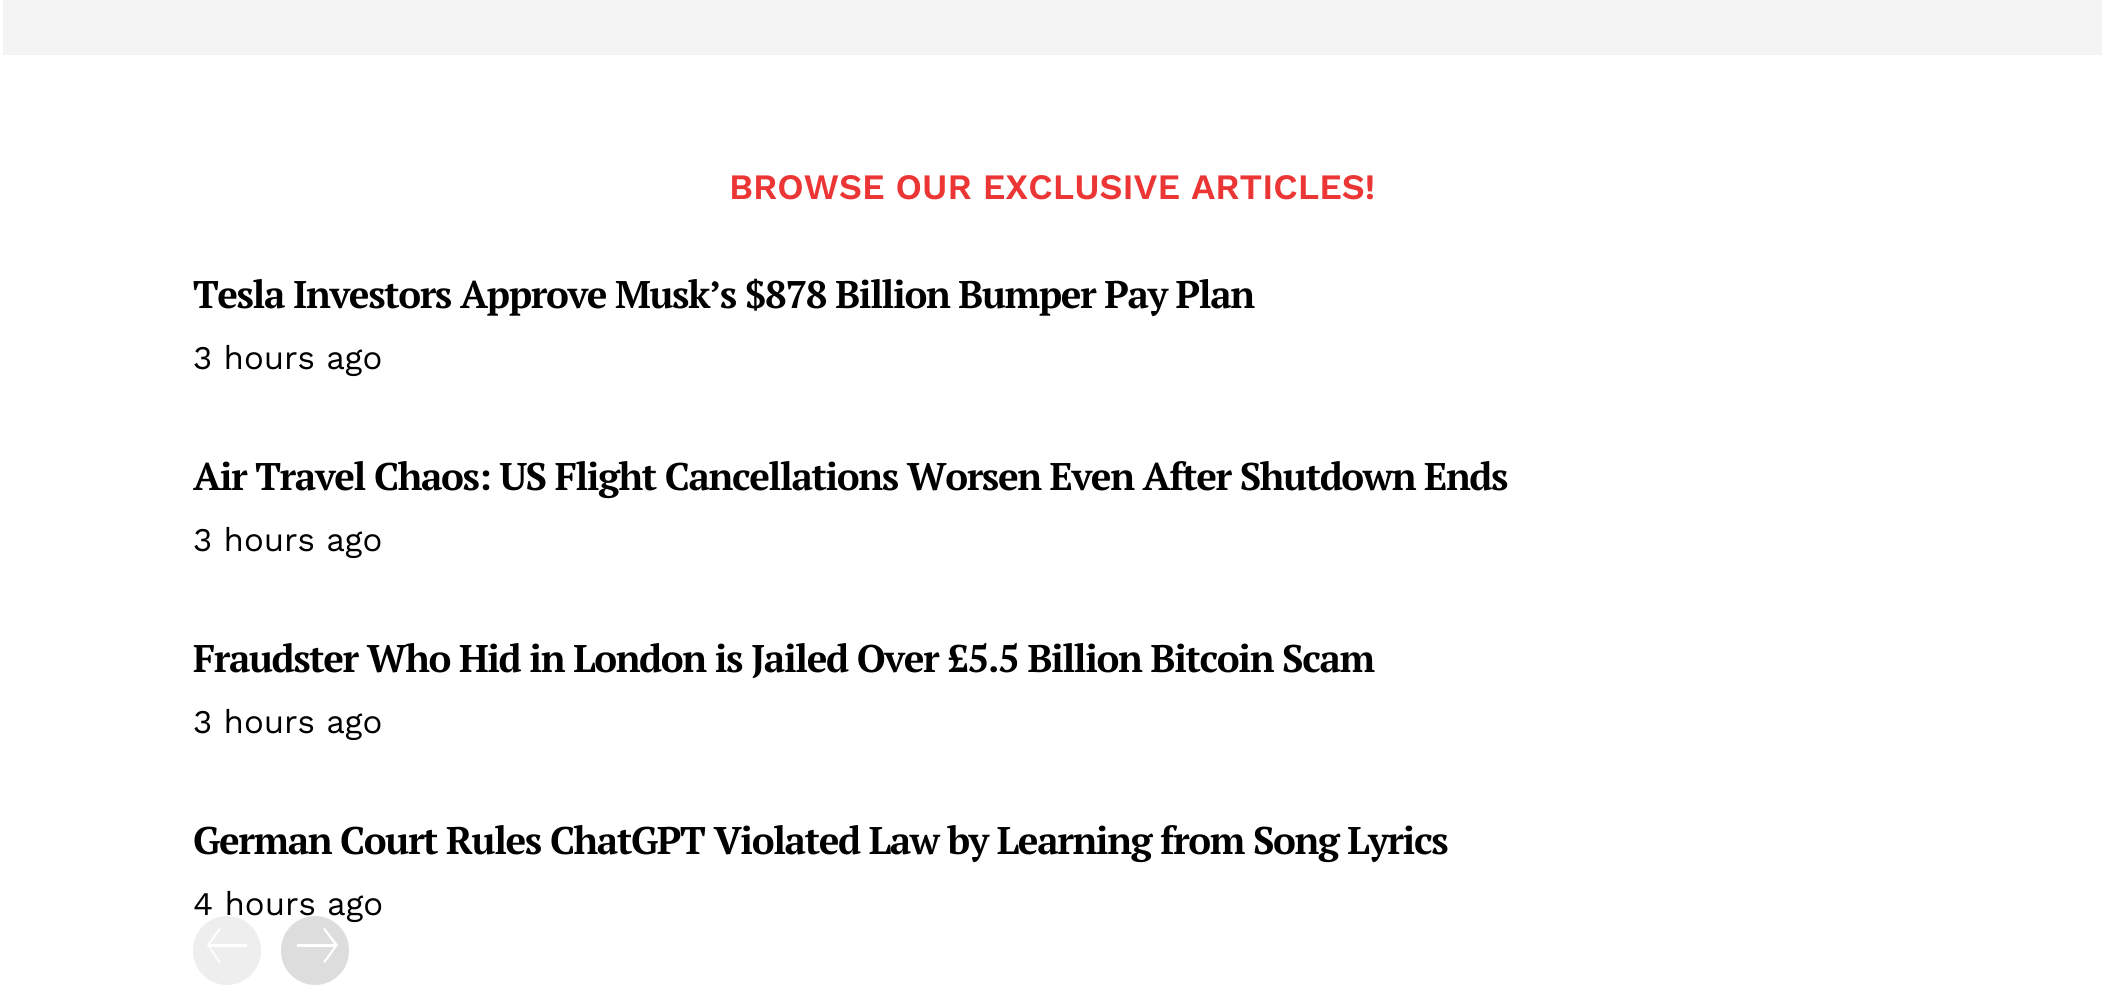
#include <cairo/cairo.h>
#include <math.h>
#include <stddef.h>

static cairo_t *cr;

static void use_color(int r, int g, int b) {
  cairo_set_source_rgb(cr, r / 255.0, g / 255.0, b / 255.0);
}

static void text(double x, double y, const char *s, const char *family, double size, int italic, int bold, int r, int g, int b) {
  cairo_select_font_face(cr, family, italic ? CAIRO_FONT_SLANT_ITALIC : CAIRO_FONT_SLANT_NORMAL,
    bold ? CAIRO_FONT_WEIGHT_BOLD : CAIRO_FONT_WEIGHT_NORMAL);
  cairo_set_font_size(cr, size);
  use_color(r, g, b);
  cairo_move_to(cr, x, y);
  cairo_show_text(cr, s);
}

static void spaced_text(double x, double y, const char *s, double letter, double word) {
  cairo_move_to(cr, x, y);
  while (*s) {
    char ch[5] = {0};
    int n = 0;
    do ch[n++] = *s++; while ((*s & 0xC0) == 0x80);
    cairo_show_text(cr, ch);
    cairo_rel_move_to(cr, letter + word * (*ch == ' '), 0);
  }
}

static void box(double x, double y, double w, double h, int r, int g, int b) {
  use_color(r, g, b);
  cairo_rectangle(cr, x, y, w, h);
  cairo_fill(cr);
}

static void round_rect(double x, double y, double w, double h, double r) {
  cairo_new_sub_path(cr);
  cairo_arc(cr, x + w - r, y + h - r, r, 0, M_PI / 2);
  cairo_arc(cr, x + r, y + h - r, r, M_PI / 2, M_PI);
  cairo_arc(cr, x + r, y + r, r, M_PI, 1.5 * M_PI);
  cairo_arc(cr, x + w - r, y + r, r, 1.5 * M_PI, 2 * M_PI);
  cairo_close_path(cr);
}

static void draw(void) {
  use_color(255, 255, 255);
  cairo_paint(cr);
  box(3, 0, 2099, 55, 244, 244, 244);
  use_color(238, 238, 238);
  round_rect(193, 916, 68, 69, 34);
  cairo_fill(cr);
  use_color(255, 255, 255);
  cairo_new_path(cr);
  cairo_move_to(cr, 221, 962);
  cairo_line_to(cr, 210, 947);
  cairo_line_to(cr, 247, 947);
  cairo_line_to(cr, 247, 944);
  cairo_line_to(cr, 210, 944);
  cairo_line_to(cr, 221, 929);
  cairo_line_to(cr, 219, 928);
  cairo_line_to(cr, 207, 945);
  cairo_line_to(cr, 219, 963);
  cairo_close_path(cr);
  cairo_fill(cr);
  use_color(221, 221, 221);
  round_rect(281, 916, 68, 69, 34);
  cairo_fill(cr);
  use_color(255, 255, 255);
  cairo_new_path(cr);
  cairo_move_to(cr, 323, 962);
  cairo_line_to(cr, 325, 963);
  cairo_line_to(cr, 338, 945);
  cairo_line_to(cr, 325, 928);
  cairo_line_to(cr, 323, 929);
  cairo_line_to(cr, 334, 944);
  cairo_line_to(cr, 297, 944);
  cairo_line_to(cr, 297, 947);
  cairo_line_to(cr, 334, 947);
  cairo_close_path(cr);
  cairo_fill(cr);
  text(729, 199, "BROWSE OUR EXCLUSIVE ARTICLES!", "Work Sans SemiBold", 35.75, 0, 0, 236, 53, 53);
  cairo_select_font_face(cr, "PT Serif", CAIRO_FONT_SLANT_NORMAL, CAIRO_FONT_WEIGHT_BOLD);
  cairo_set_font_size(cr, 38.5);
  use_color(0, 0, 0);
  spaced_text(193, 308, "Tesla Investors Approve Musk’s $878 Billion Bumper Pay Plan", -1.38, 0);
  text(193, 369, "3 hours ago", "Work Sans", 33, 0, 0, 0, 0, 0);
  cairo_select_font_face(cr, "PT Serif", CAIRO_FONT_SLANT_NORMAL, CAIRO_FONT_WEIGHT_BOLD);
  cairo_set_font_size(cr, 38.5);
  spaced_text(193, 490, "Air Travel Chaos: US Flight Cancellations Worsen Even After Shutdown Ends", -1.38, 0);
  text(193, 551, "3 hours ago", "Work Sans", 33, 0, 0, 0, 0, 0);
  cairo_select_font_face(cr, "PT Serif", CAIRO_FONT_SLANT_NORMAL, CAIRO_FONT_WEIGHT_BOLD);
  cairo_set_font_size(cr, 38.5);
  spaced_text(193, 672, "Fraudster Who Hid in London is Jailed Over £5.5 Billion Bitcoin Scam", -1.38, 0);
  text(193, 733, "3 hours ago", "Work Sans", 33, 0, 0, 0, 0, 0);
  cairo_select_font_face(cr, "PT Serif", CAIRO_FONT_SLANT_NORMAL, CAIRO_FONT_WEIGHT_BOLD);
  cairo_set_font_size(cr, 38.5);
  spaced_text(193, 854, "German Court Rules ChatGPT Violated Law by Learning from Song Lyrics", -1.38, 0);
  text(193, 915, "4 hours ago", "Work Sans", 33, 0, 0, 0, 0, 0);
}

int main(void) {
  cairo_surface_t *surface = cairo_image_surface_create(CAIRO_FORMAT_RGB24, 2102, 1008);
  cr = cairo_create(surface);
  cairo_font_options_t *options = cairo_font_options_create();
  cairo_font_options_set_hint_metrics(options, CAIRO_HINT_METRICS_OFF);
  cairo_font_options_set_hint_style(options, CAIRO_HINT_STYLE_NONE);
  cairo_set_font_options(cr, options);
  cairo_set_miter_limit(cr, 4);
  draw();
  cairo_surface_write_to_png(surface, "out.png");
  cairo_font_options_destroy(options);
  cairo_destroy(cr);
  cairo_surface_destroy(surface);
  return 0;
}
